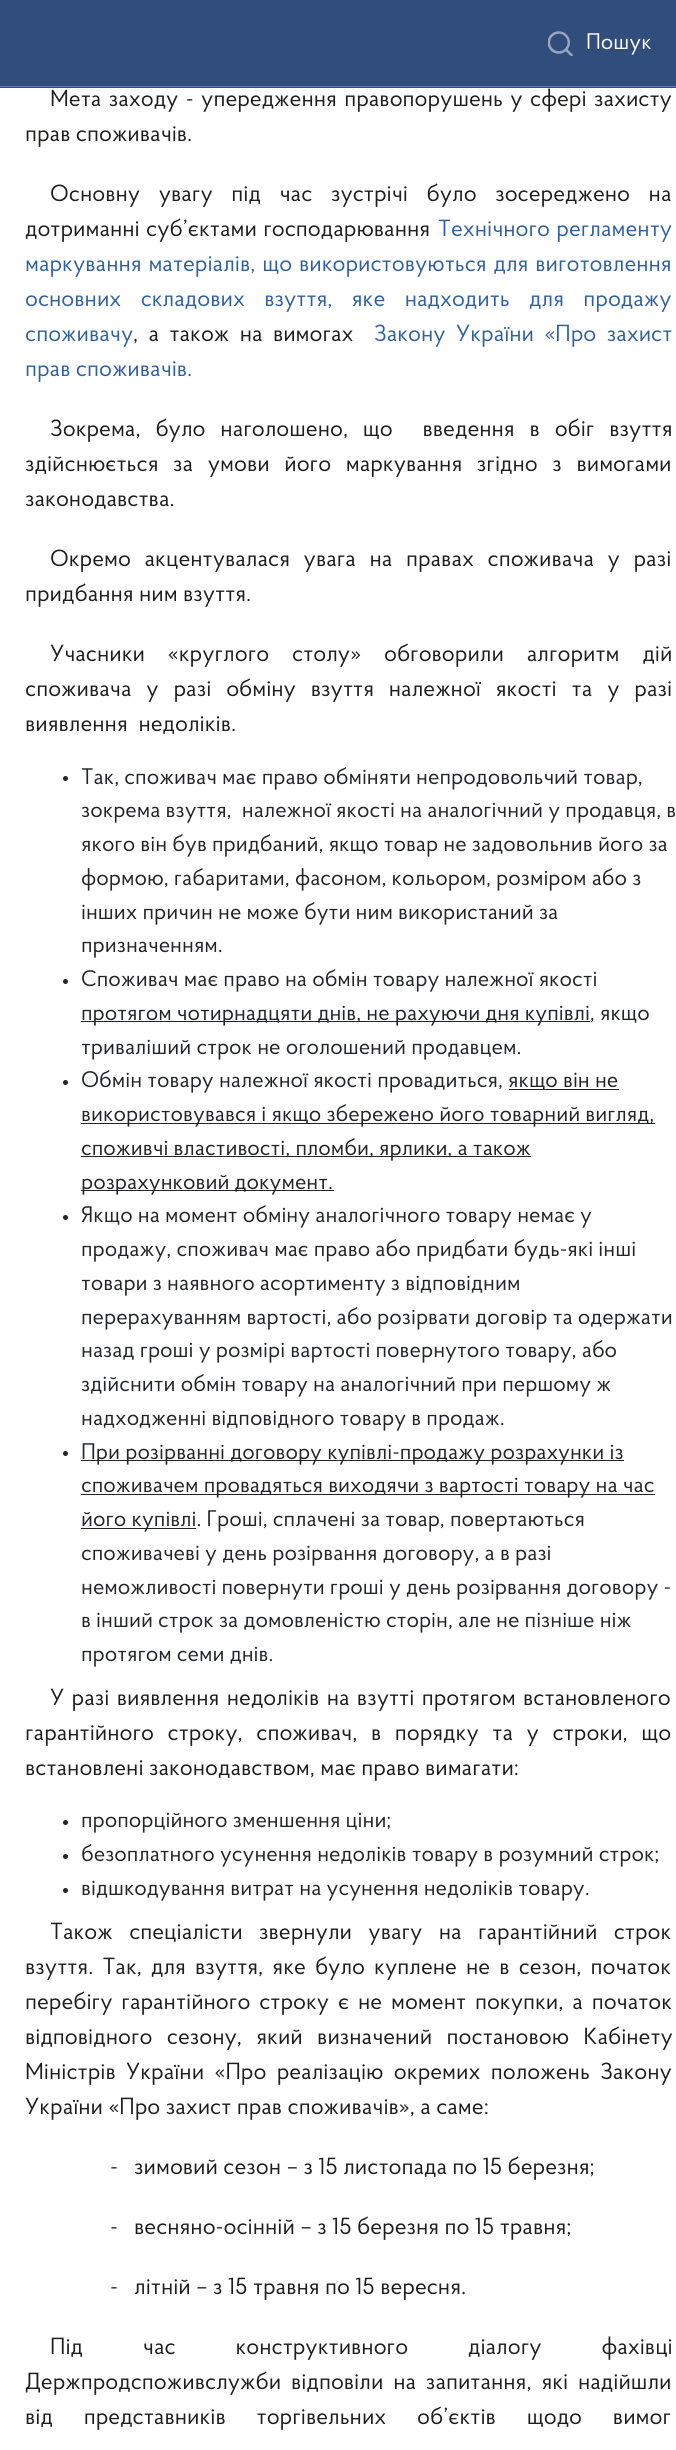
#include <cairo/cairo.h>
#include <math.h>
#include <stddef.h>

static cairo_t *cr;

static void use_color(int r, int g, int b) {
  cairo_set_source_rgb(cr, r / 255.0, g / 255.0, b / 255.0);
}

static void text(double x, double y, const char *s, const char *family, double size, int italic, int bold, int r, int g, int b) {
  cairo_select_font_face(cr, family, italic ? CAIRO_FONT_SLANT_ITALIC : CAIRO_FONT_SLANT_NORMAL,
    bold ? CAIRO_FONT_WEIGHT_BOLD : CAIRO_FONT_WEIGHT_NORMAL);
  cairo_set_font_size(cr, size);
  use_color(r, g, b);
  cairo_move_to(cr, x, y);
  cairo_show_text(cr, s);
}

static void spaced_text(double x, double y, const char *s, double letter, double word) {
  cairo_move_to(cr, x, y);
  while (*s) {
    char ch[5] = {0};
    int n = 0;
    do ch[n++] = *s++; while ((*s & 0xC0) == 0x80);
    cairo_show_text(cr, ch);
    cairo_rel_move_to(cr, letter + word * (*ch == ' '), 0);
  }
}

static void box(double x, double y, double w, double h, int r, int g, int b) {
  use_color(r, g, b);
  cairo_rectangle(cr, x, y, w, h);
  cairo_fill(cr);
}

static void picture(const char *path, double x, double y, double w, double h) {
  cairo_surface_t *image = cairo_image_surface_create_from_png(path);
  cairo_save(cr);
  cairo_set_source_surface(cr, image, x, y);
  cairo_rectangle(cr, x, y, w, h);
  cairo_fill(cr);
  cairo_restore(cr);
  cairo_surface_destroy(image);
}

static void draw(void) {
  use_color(255, 255, 255);
  cairo_paint(cr);
  box(0, 0, 676, 88, 48, 77, 124);
  box(0, 86, 676, 1, 87, 125, 184);
  picture("img_01.png", 548, 31, 25, 25);
  use_color(33, 37, 41);
  cairo_arc(cr, 65.5, 778.5, 2.5, 0, 2 * M_PI);
  cairo_fill(cr);
  cairo_arc(cr, 65.5, 981.5, 2.5, 0, 2 * M_PI);
  cairo_fill(cr);
  box(81, 1021, 509, 1, 33, 37, 41);
  cairo_arc(cr, 65.5, 1082.5, 2.5, 0, 2 * M_PI);
  cairo_fill(cr);
  box(509, 1089, 110, 1, 33, 37, 41);
  box(81, 1123, 574, 1, 33, 37, 41);
  box(81, 1156, 450, 1, 33, 37, 41);
  box(81, 1190, 253, 1, 33, 37, 41);
  cairo_arc(cr, 65.5, 1217.5, 2.5, 0, 2 * M_PI);
  cairo_fill(cr);
  cairo_arc(cr, 65.5, 1453.5, 2.5, 0, 2 * M_PI);
  cairo_fill(cr);
  box(81, 1460, 543, 1, 33, 37, 41);
  box(81, 1494, 574, 1, 33, 37, 41);
  box(81, 1528, 115, 1, 33, 37, 41);
  cairo_arc(cr, 65.5, 1822.5, 2.5, 0, 2 * M_PI);
  cairo_fill(cr);
  cairo_arc(cr, 65.5, 1856.5, 2.5, 0, 2 * M_PI);
  cairo_fill(cr);
  cairo_arc(cr, 65.5, 1890.5, 2.5, 0, 2 * M_PI);
  cairo_fill(cr);
  text(586, 49, "Пошук", "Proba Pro", 22.5, 0, 0, 255, 255, 255);
  cairo_set_font_size(cr, 23.3);
  use_color(29, 29, 27);
  spaced_text(50, 106, "Мета заходу - упередження правопорушень у сфері захисту", 0, 2);
  text(25, 141, "прав споживачів.", "Proba Pro", 23.3, 0, 0, 29, 29, 27);
  spaced_text(50, 201, "Основну увагу під час зустрічі було зосереджено на", 0, 13.25);
  spaced_text(25, 236, "дотриманні суб’єктами господарювання", 0, 1);
  use_color(46, 96, 161);
  spaced_text(438, 236, "Технічного регламенту", 0, 1);
  spaced_text(25, 271, "маркування матеріалів, що використовуються для виготовлення", 0, 1.5);
  spaced_text(25, 306, "основних складових взуття, яке надходить для продажу", 0, 14);
  text(25, 341, "споживачу", "Proba Pro", 23.3, 0, 0, 46, 96, 161);
  use_color(29, 29, 27);
  spaced_text(133, 341, ", а також на вимогах", 0, 5);
  use_color(46, 96, 161);
  spaced_text(374, 341, "Закону України «Про захист", 0, 5);
  text(25, 376, "прав споживачів.", "Proba Pro", 23.3, 0, 0, 46, 96, 161);
  use_color(29, 29, 27);
  spaced_text(50, 436, "Зокрема, було наголошено, що  введення в обіг взуття", 0, 9.5);
  spaced_text(25, 471, "здійснюється за умови його маркування згідно з вимогами", 0, 9.25);
  text(25, 506, "законодавства.", "Proba Pro", 23.3, 0, 0, 29, 29, 27);
  spaced_text(50, 566, "Окремо акцентувалася увага на правах споживача у разі", 0, 8.25);
  text(25, 601, "придбання ним взуття.", "Proba Pro", 23.3, 0, 0, 29, 29, 27);
  spaced_text(50, 661, "Учасники «круглого столу» обговорили алгоритм дій", 0, 17.5);
  spaced_text(25, 696, "споживача у разі обміну взуття належної якості та у разі", 0, 9.5);
  text(25, 731, "виявлення  недоліків.", "Proba Pro", 23.3, 0, 0, 29, 29, 27);
  text(81, 784, "Так, споживач має право обміняти непродовольчий товар,", "Proba Pro", 22.5, 0, 0, 33, 37, 41);
  text(81, 817, "зокрема взуття,  належної якості на аналогічний у продавця, в", "Proba Pro", 22.5, 0, 0, 33, 37, 41);
  text(81, 851, "якого він був придбаний, якщо товар не задовольнив його за", "Proba Pro", 22.5, 0, 0, 33, 37, 41);
  text(81, 885, "формою, габаритами, фасоном, кольором, розміром або з", "Proba Pro", 22.5, 0, 0, 33, 37, 41);
  text(81, 919, "інших причин не може бути ним використаний за", "Proba Pro", 22.5, 0, 0, 33, 37, 41);
  text(81, 952, "призначенням.", "Proba Pro", 22.5, 0, 0, 33, 37, 41);
  text(81, 986, "Споживач має право на обмін товару належної якості", "Proba Pro", 22.5, 0, 0, 33, 37, 41);
  text(81, 1020, "протягом чотирнадцяти днів, не рахуючи дня купівлі, якщо", "Proba Pro", 22.5, 0, 0, 33, 37, 41);
  text(81, 1054, "триваліший строк не оголошений продавцем.", "Proba Pro", 22.5, 0, 0, 33, 37, 41);
  text(81, 1087, "Обмін товару належної якості провадиться,", "Proba Pro", 22.5, 0, 0, 33, 37, 41);
  text(508, 1087, "якщо він не", "Proba Pro", 22.5, 0, 0, 33, 37, 41);
  text(81, 1121, "використовувався і якщо збережено його товарний вигляд,", "Proba Pro", 22.5, 0, 0, 33, 37, 41);
  text(81, 1155, "споживчі властивості, пломби, ярлики, а також", "Proba Pro", 22.5, 0, 0, 33, 37, 41);
  text(81, 1189, "розрахунковий документ.", "Proba Pro", 22.5, 0, 0, 33, 37, 41);
  text(81, 1222, "Якщо на момент обміну аналогічного товару немає у", "Proba Pro", 22.5, 0, 0, 33, 37, 41);
  text(81, 1256, "продажу, споживач має право або придбати будь-які інші", "Proba Pro", 22.5, 0, 0, 33, 37, 41);
  text(81, 1290, "товари з наявного асортименту з відповідним", "Proba Pro", 22.5, 0, 0, 33, 37, 41);
  text(81, 1324, "перерахуванням вартості, або розірвати договір та одержати", "Proba Pro", 22.5, 0, 0, 33, 37, 41);
  text(81, 1357, "назад гроші у розмірі вартості повернутого товару, або", "Proba Pro", 22.5, 0, 0, 33, 37, 41);
  text(81, 1391, "здійснити обмін товару на аналогічний при першому ж", "Proba Pro", 22.5, 0, 0, 33, 37, 41);
  text(81, 1425, "надходженні відповідного товару в продаж.", "Proba Pro", 22.5, 0, 0, 33, 37, 41);
  text(81, 1459, "При розірванні договору купівлі-продажу розрахунки із", "Proba Pro", 22.5, 0, 0, 33, 37, 41);
  text(81, 1492, "споживачем провадяться виходячи з вартості товару на час", "Proba Pro", 22.5, 0, 0, 33, 37, 41);
  text(81, 1526, "його купівлі. Гроші, сплачені за товар, повертаються", "Proba Pro", 22.5, 0, 0, 33, 37, 41);
  text(81, 1560, "споживачеві у день розірвання договору, а в разі", "Proba Pro", 22.5, 0, 0, 33, 37, 41);
  text(81, 1594, "неможливості повернути гроші у день розірвання договору -", "Proba Pro", 22.5, 0, 0, 33, 37, 41);
  text(81, 1627, "в інший строк за домовленістю сторін, але не пізніше ніж", "Proba Pro", 22.5, 0, 0, 33, 37, 41);
  text(81, 1661, "протягом семи днів.", "Proba Pro", 22.5, 0, 0, 33, 37, 41);
  cairo_set_font_size(cr, 23.3);
  use_color(29, 29, 27);
  spaced_text(50, 1705, "У разі виявлення недоліків на взутті протягом встановленого", 0, 2);
  spaced_text(25, 1740, "гарантійного строку, споживач, в порядку та у строки, що", 0, 8.25);
  text(25, 1775, "встановлені законодавством, має право вимагати:", "Proba Pro", 23.3, 0, 0, 29, 29, 27);
  text(81, 1827, "пропорційного зменшення ціни;", "Proba Pro", 22.5, 0, 0, 33, 37, 41);
  text(81, 1861, "безоплатного усунення недоліків товару в розумний строк;", "Proba Pro", 22.5, 0, 0, 33, 37, 41);
  text(81, 1895, "відшкодування витрат на усунення недоліків товару.", "Proba Pro", 22.5, 0, 0, 33, 37, 41);
  cairo_set_font_size(cr, 23.3);
  use_color(29, 29, 27);
  spaced_text(50, 1939, "Також спеціалісти звернули увагу на гарантійний строк", 0, 11);
  spaced_text(25, 1974, "взуття. Так, для взуття, яке було куплене не в сезон, початок", 0, 3.75);
  spaced_text(25, 2009, "перебігу гарантійного строку є не момент покупки, а початок", 0, 3.5);
  spaced_text(25, 2044, "відповідного сезону, який визначений постановою Кабінету", 0, 9);
  spaced_text(25, 2079, "Міністрів України «Про реалізацію окремих положень Закону", 0, 5);
  text(25, 2114, "України «Про захист прав споживачів», а саме:", "Proba Pro", 23.3, 0, 0, 29, 29, 27);
  text(110, 2174, "-   зимовий сезон – з 15 листопада по 15 березня;", "Proba Pro", 23.3, 0, 0, 29, 29, 27);
  text(110, 2234, "-   весняно-осінній – з 15 березня по 15 травня;", "Proba Pro", 23.3, 0, 0, 29, 29, 27);
  text(110, 2294, "-   літній – з 15 травня по 15 вересня.", "Proba Pro", 23.3, 0, 0, 29, 29, 27);
  spaced_text(50, 2354, "Під час конструктивного діалогу фахівці", 0, 54.5);
  spaced_text(25, 2389, "Держпродспоживслужби відповіли на запитання, які надійшли", 0, 4.5);
  spaced_text(25, 2424, "від представників торгівельних об’єктів щодо вимог", 0, 25.5);
}

int main(void) {
  cairo_surface_t *surface = cairo_image_surface_create(CAIRO_FORMAT_RGB24, 676, 2450);
  cr = cairo_create(surface);
  cairo_font_options_t *options = cairo_font_options_create();
  cairo_font_options_set_hint_metrics(options, CAIRO_HINT_METRICS_OFF);
  cairo_font_options_set_hint_style(options, CAIRO_HINT_STYLE_NONE);
  cairo_set_font_options(cr, options);
  cairo_set_miter_limit(cr, 4);
  draw();
  cairo_surface_write_to_png(surface, "out.png");
  cairo_font_options_destroy(options);
  cairo_destroy(cr);
  cairo_surface_destroy(surface);
  return 0;
}
